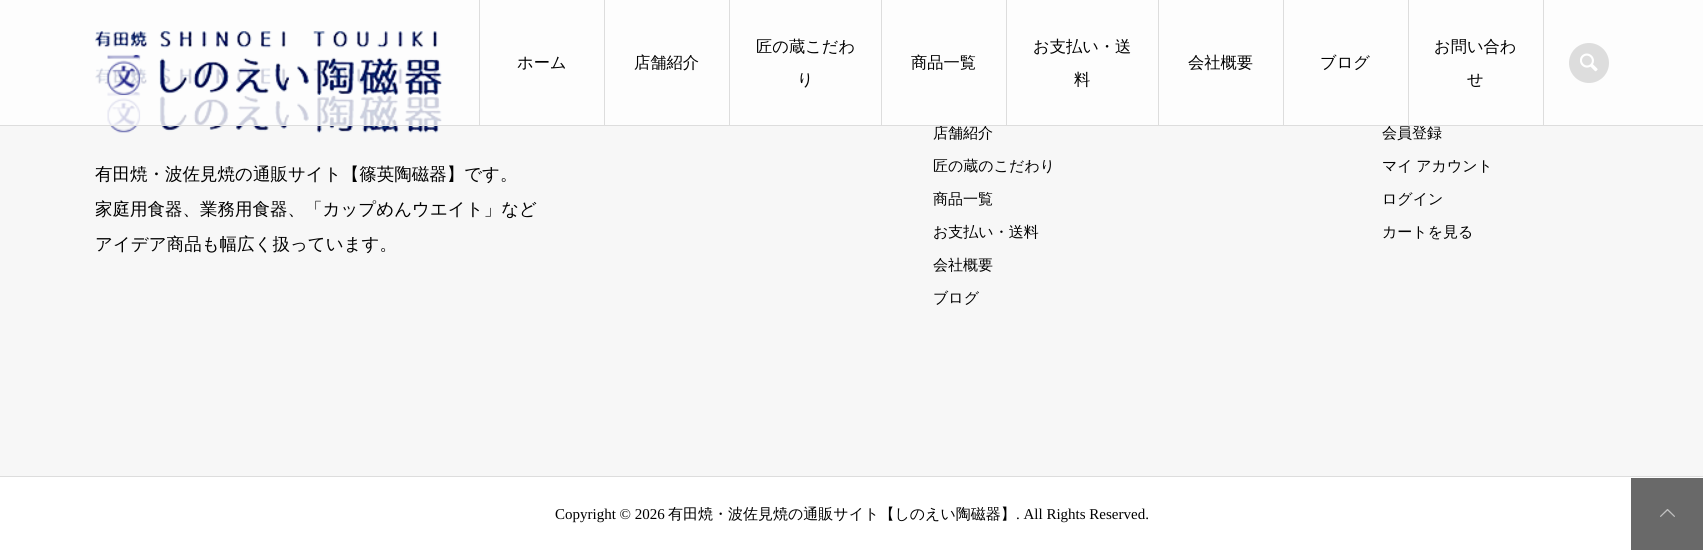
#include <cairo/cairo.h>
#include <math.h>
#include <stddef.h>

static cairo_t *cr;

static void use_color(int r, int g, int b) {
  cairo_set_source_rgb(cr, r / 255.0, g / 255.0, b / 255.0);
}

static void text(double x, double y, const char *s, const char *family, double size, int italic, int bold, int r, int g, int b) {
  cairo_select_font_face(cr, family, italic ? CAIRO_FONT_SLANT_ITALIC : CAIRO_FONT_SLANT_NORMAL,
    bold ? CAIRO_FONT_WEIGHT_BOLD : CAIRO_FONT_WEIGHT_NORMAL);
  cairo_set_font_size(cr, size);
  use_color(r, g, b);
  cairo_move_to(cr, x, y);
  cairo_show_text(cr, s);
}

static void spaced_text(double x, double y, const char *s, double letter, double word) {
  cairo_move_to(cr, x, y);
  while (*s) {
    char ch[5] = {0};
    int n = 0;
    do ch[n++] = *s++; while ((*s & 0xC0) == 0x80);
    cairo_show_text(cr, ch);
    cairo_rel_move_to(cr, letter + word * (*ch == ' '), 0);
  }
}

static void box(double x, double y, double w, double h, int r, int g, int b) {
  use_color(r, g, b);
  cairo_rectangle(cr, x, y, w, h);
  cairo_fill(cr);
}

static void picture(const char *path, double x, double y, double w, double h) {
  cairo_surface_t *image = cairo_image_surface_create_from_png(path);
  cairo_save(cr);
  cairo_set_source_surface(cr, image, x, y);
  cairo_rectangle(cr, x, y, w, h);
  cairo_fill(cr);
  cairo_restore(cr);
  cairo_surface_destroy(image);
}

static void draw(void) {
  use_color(255, 255, 255);
  cairo_paint(cr);
  box(0, 0, 1703, 476, 247, 247, 247);
  picture("img_03.png", 95, 68, 347, 65);
  cairo_set_source_rgba(cr, 1, 1, 1, 0.8);
  cairo_rectangle(cr, 0, 0, 1703, 125);
  cairo_fill(cr);
  picture("img_01.png", 95, 31, 347, 64);
  box(479, 0, 1, 125, 221, 221, 221);
  cairo_arc(cr, 1589, 63, 20, 0, 2 * M_PI);
  cairo_fill(cr);
  picture("img_02.png", 1580, 53, 18, 19);
  box(0, 476, 1703, 1, 221, 221, 221);
  box(1631, 478, 72, 72, 105, 105, 105);
  picture("img_04.png", 1660, 509, 15, 8);
  text(517, 68, "ホーム", "WenQuanYi Zen Hei Medium", 16.25, 0, 0, 0, 0, 0);
  text(634, 68, "店舗紹介", "WenQuanYi Zen Hei Medium", 16.25, 0, 0, 0, 0, 0);
  text(756, 52, "匠の蔵こだわ", "WenQuanYi Zen Hei Medium", 16.25, 0, 0, 0, 0, 0);
  text(797, 85, "り", "WenQuanYi Zen Hei Medium", 16.25, 0, 0, 0, 0, 0);
  text(911, 68, "商品一覧", "WenQuanYi Zen Hei Medium", 16.25, 0, 0, 0, 0, 0);
  text(1033, 52, "お支払い・送", "WenQuanYi Zen Hei Medium", 16.25, 0, 0, 0, 0, 0);
  text(1074, 85, "料", "WenQuanYi Zen Hei Medium", 16.25, 0, 0, 0, 0, 0);
  text(1188, 68, "会社概要", "WenQuanYi Zen Hei Medium", 16.25, 0, 0, 0, 0, 0);
  text(1320, 68, "ブログ", "WenQuanYi Zen Hei Medium", 16.25, 0, 0, 0, 0, 0);
  text(1434, 52, "お問い合わ", "WenQuanYi Zen Hei Medium", 16.25, 0, 0, 0, 0, 0);
  text(1467, 85, "せ", "WenQuanYi Zen Hei Medium", 16.25, 0, 0, 0, 0, 0);
  text(95, 180, "有田焼・波佐見焼の通販サイト【篠英陶磁器】です。", "WenQuanYi Zen Hei Medium", 17.5, 0, 0, 0, 0, 0);
  text(95, 215, "家庭用食器、業務用食器、「カップめんウエイト」など", "WenQuanYi Zen Hei Medium", 17.5, 0, 0, 0, 0, 0);
  text(95, 250, "アイデア商品も幅広く扱っています。", "WenQuanYi Zen Hei Medium", 17.5, 0, 0, 0, 0, 0);
  text(933, 138, "店舗紹介", "WenQuanYi Zen Hei Medium", 15, 0, 0, 0, 0, 0);
  text(933, 171, "匠の蔵のこだわり", "WenQuanYi Zen Hei Medium", 15, 0, 0, 0, 0, 0);
  text(933, 204, "商品一覧", "WenQuanYi Zen Hei Medium", 15, 0, 0, 0, 0, 0);
  text(933, 237, "お支払い・送料", "WenQuanYi Zen Hei Medium", 15, 0, 0, 0, 0, 0);
  text(933, 270, "会社概要", "WenQuanYi Zen Hei Medium", 15, 0, 0, 0, 0, 0);
  text(933, 303, "ブログ", "WenQuanYi Zen Hei Medium", 15, 0, 0, 0, 0, 0);
  text(1382, 138, "会員登録", "WenQuanYi Zen Hei Medium", 15, 0, 0, 0, 0, 0);
  box(0, 125, 1703, 1, 221, 221, 221);
  box(1543, 0, 1, 126, 221, 221, 221);
  box(1408, 0, 1, 126, 221, 221, 221);
  box(1283, 0, 1, 126, 221, 221, 221);
  box(1158, 0, 1, 126, 221, 221, 221);
  box(1006, 0, 1, 126, 221, 221, 221);
  box(881, 0, 1, 126, 221, 221, 221);
  box(729, 0, 1, 126, 221, 221, 221);
  box(604, 0, 1, 126, 221, 221, 221);
  use_color(0, 0, 0);
  spaced_text(1382, 171, "マイ アカウント", 0, -1);
  text(1382, 204, "ログイン", "WenQuanYi Zen Hei Medium", 15, 0, 0, 0, 0, 0);
  text(1382, 237, "カートを見る", "WenQuanYi Zen Hei Medium", 15, 0, 0, 0, 0, 0);
  text(555, 519, "Copyright © 2026", "Liberation Serif", 15, 0, 0, 0, 0, 0);
  text(668, 519, "有田焼・波佐見焼の通販サイト【しのえい陶磁器】", "WenQuanYi Zen Hei Medium", 15, 0, 0, 0, 0, 0);
  text(1016, 519, ". All Rights Reserved.", "Liberation Serif", 15, 0, 0, 0, 0, 0);
}

int main(void) {
  cairo_surface_t *surface = cairo_image_surface_create(CAIRO_FORMAT_RGB24, 1703, 550);
  cr = cairo_create(surface);
  cairo_font_options_t *options = cairo_font_options_create();
  cairo_font_options_set_hint_metrics(options, CAIRO_HINT_METRICS_OFF);
  cairo_font_options_set_hint_style(options, CAIRO_HINT_STYLE_NONE);
  cairo_set_font_options(cr, options);
  cairo_set_miter_limit(cr, 4);
  draw();
  cairo_surface_write_to_png(surface, "out.png");
  cairo_font_options_destroy(options);
  cairo_destroy(cr);
  cairo_surface_destroy(surface);
  return 0;
}
